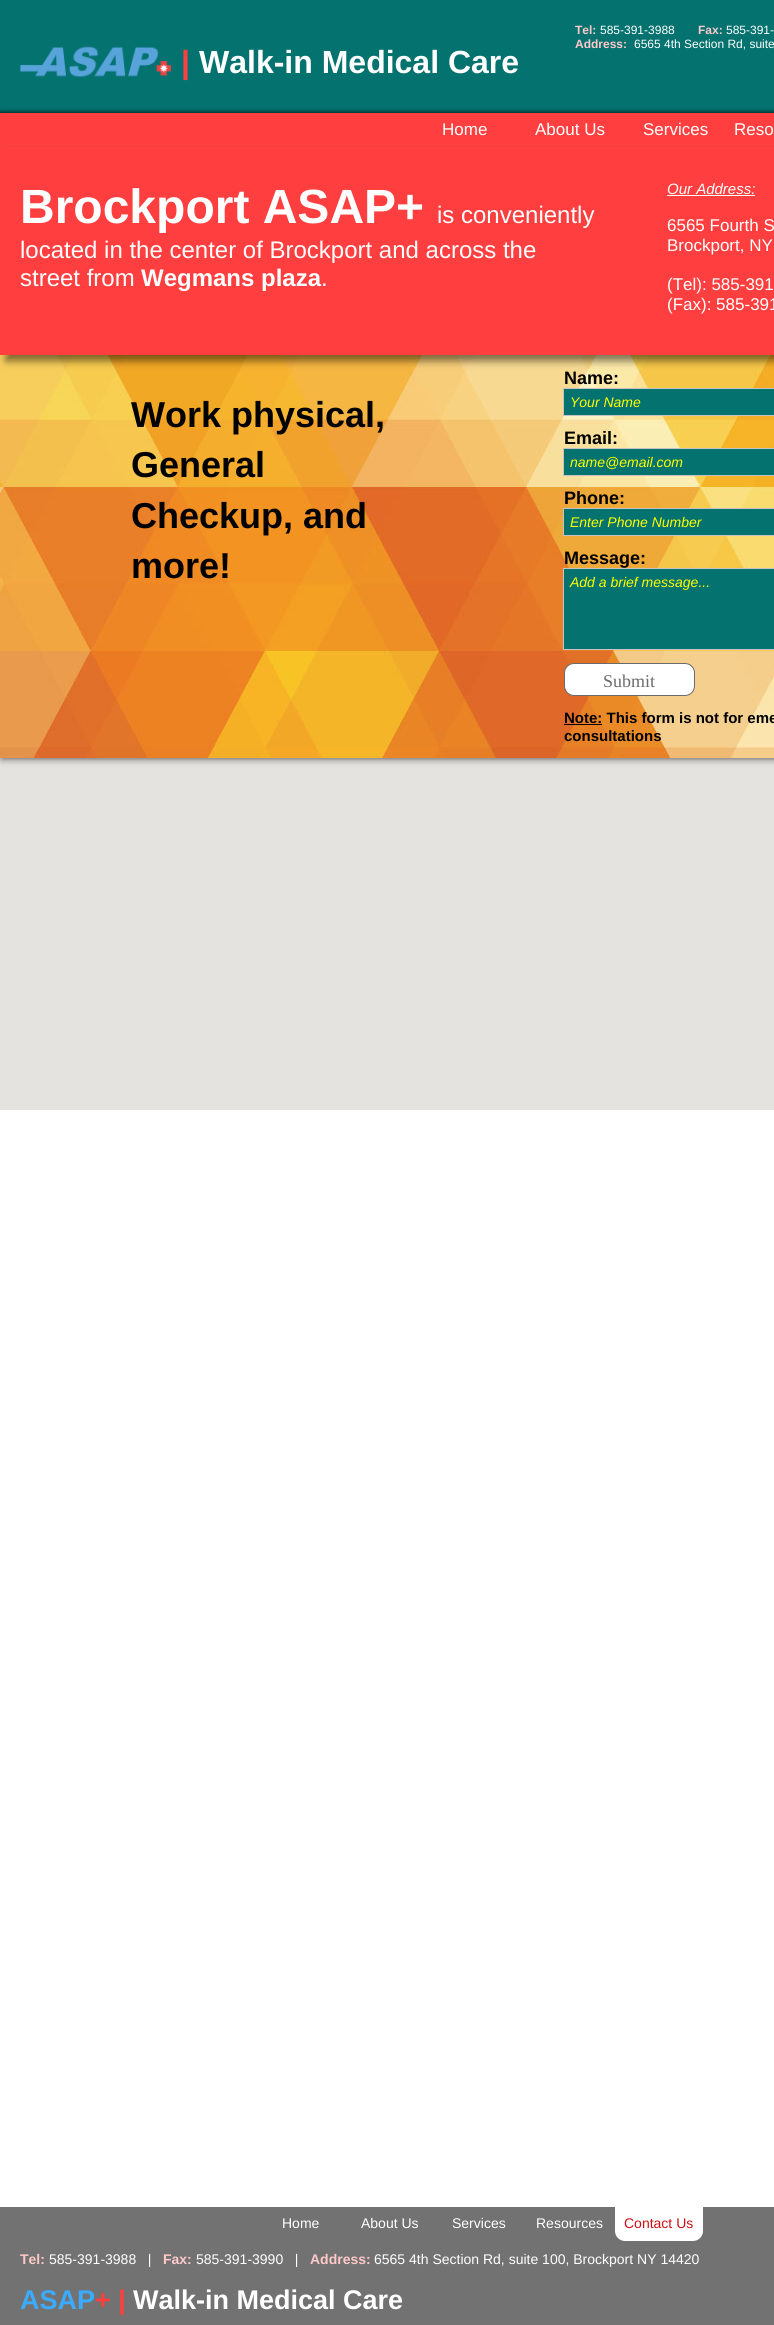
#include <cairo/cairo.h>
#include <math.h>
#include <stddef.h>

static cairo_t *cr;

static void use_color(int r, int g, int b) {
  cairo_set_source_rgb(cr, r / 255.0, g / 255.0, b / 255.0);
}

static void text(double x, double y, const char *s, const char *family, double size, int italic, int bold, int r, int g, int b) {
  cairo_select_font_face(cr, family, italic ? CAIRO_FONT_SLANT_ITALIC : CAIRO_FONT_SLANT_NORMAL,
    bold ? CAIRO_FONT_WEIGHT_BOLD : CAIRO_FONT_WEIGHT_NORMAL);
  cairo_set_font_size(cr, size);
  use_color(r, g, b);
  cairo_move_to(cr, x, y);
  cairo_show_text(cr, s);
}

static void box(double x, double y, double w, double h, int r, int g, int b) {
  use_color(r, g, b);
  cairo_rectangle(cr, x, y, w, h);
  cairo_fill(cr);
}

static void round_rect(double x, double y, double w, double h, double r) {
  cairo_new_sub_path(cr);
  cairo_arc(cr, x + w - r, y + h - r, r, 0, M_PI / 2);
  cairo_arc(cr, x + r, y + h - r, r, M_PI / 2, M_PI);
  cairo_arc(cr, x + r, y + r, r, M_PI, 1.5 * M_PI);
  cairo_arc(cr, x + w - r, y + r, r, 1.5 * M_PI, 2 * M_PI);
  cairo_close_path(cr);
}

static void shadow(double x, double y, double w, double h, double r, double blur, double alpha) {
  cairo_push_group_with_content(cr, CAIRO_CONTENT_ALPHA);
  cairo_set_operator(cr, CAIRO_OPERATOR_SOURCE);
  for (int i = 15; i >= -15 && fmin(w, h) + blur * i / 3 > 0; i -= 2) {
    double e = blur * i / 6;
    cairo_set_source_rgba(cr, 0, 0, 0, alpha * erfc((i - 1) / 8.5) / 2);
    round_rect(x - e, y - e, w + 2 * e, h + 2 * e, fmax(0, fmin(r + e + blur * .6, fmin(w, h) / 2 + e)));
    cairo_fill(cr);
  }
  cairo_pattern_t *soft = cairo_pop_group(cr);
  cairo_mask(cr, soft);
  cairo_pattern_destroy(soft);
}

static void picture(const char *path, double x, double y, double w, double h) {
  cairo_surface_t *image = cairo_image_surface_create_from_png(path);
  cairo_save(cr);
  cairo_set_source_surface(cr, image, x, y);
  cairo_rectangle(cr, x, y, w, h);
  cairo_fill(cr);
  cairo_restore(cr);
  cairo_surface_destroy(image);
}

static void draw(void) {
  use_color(255, 255, 255);
  cairo_paint(cr);
  box(0, 0, 774, 113, 4, 114, 111);
  picture("img_01.png", 20, 46, 151, 31);
  use_color(0, 0, 0);
  shadow(0, 113, 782, 34, 0, 2.5, 0.6);
  shadow(0, 113, 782, 34, 0, 2.5, 0.6);
  box(0, 113, 774, 34, 255, 63, 63);
  box(0, 758, 774, 352, 229, 227, 223);
  use_color(0, 0, 0);
  shadow(2, 355, 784, 403, 0, 4, 0.72);
  picture("img_02.png", 0, 355, 774, 403);
  shadow(6, 153, 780, 208, 0, 4, 0.5);
  box(0, 147, 774, 208, 255, 63, 63);
  box(667, 195, 88, 1, 255, 255, 255);
  use_color(4, 114, 111);
  cairo_rectangle(cr, 563.5, 388.5, 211, 27);
  cairo_fill_preserve(cr);
  use_color(196, 196, 196);
  cairo_set_line_width(cr, 1);
  cairo_stroke(cr);
  use_color(4, 114, 111);
  cairo_rectangle(cr, 563.5, 448.5, 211, 27);
  cairo_fill_preserve(cr);
  use_color(196, 196, 196);
  cairo_stroke(cr);
  use_color(4, 114, 111);
  cairo_rectangle(cr, 563.5, 508.5, 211, 27);
  cairo_fill_preserve(cr);
  use_color(196, 196, 196);
  cairo_stroke(cr);
  use_color(4, 114, 111);
  cairo_rectangle(cr, 563.5, 568.5, 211, 81);
  cairo_fill_preserve(cr);
  use_color(196, 196, 196);
  cairo_stroke(cr);
  use_color(255, 255, 255);
  round_rect(564.5, 663.5, 130, 32, 9.5);
  cairo_fill_preserve(cr);
  use_color(107, 107, 107);
  cairo_stroke(cr);
  box(564, 724, 38, 1, 0, 0, 0);
  box(0, 2207, 774, 118, 114, 114, 114);
  use_color(255, 255, 255);
  cairo_new_path(cr);
  cairo_move_to(cr, 615, 2207);
  cairo_line_to(cr, 703, 2207);
  cairo_line_to(cr, 703, 2231);
  cairo_curve_to(cr, 703, 2236.5, 698.5, 2241, 693, 2241);
  cairo_line_to(cr, 625, 2241);
  cairo_curve_to(cr, 619.5, 2241, 615, 2236.5, 615, 2231);
  cairo_close_path(cr);
  cairo_fill(cr);
  text(575, 34, "Tel:", "Liberation Sans", 12, 0, 1, 255, 200, 201);
  text(600, 34, "585-391-3988", "Liberation Sans", 12, 0, 0, 255, 255, 255);
  text(698, 34, "Fax:", "Liberation Sans", 12, 0, 1, 255, 200, 201);
  text(726, 34, "585-391-", "Liberation Sans", 12, 0, 0, 255, 255, 255);
  text(575, 48, "Address:", "Liberation Sans", 12, 0, 1, 255, 200, 201);
  text(634, 48, "6565 4th Section Rd, suite", "Liberation Sans", 12, 0, 0, 255, 255, 255);
  text(181, 73, "|", "Liberation Sans", 32, 0, 1, 255, 63, 63);
  text(199, 73, "Walk-in Medical Care", "Liberation Sans", 32, 0, 1, 255, 255, 255);
  text(442, 135, "Home", "Liberation Sans", 17, 0, 0, 255, 255, 255);
  text(535, 135, "About Us", "Liberation Sans", 17, 0, 0, 255, 255, 255);
  text(643, 135, "Services", "Liberation Sans", 17, 0, 0, 255, 255, 255);
  text(734, 135, "Reso", "Liberation Sans", 17, 0, 0, 255, 255, 255);
  text(20, 223, "Brockport ASAP+", "Liberation Sans", 48, 0, 1, 255, 255, 255);
  text(437, 223, "is conveniently", "Liberation Sans", 24, 0, 0, 255, 255, 255);
  text(20, 258, "located in the center of Brockport and across the", "Liberation Sans", 24, 0, 0, 255, 255, 255);
  text(20, 286, "street from", "Liberation Sans", 24, 0, 0, 255, 255, 255);
  text(141, 286, "Wegmans plaza", "Liberation Sans", 24, 0, 1, 255, 255, 255);
  text(321, 286, ".", "Liberation Sans", 24, 0, 0, 255, 255, 255);
  text(667, 194, "Our Address:", "Liberation Sans", 15, 1, 0, 255, 255, 255);
  text(667, 231, "6565 Fourth S", "Liberation Sans", 17, 0, 0, 255, 255, 255);
  text(667, 251, "Brockport, NY", "Liberation Sans", 17, 0, 0, 255, 255, 255);
  text(667, 290, "(Tel): 585-391", "Liberation Sans", 17, 0, 0, 255, 255, 255);
  text(667, 310, "(Fax): 585-391", "Liberation Sans", 17, 0, 0, 255, 255, 255);
  text(131, 427, "Work physical,", "Liberation Sans", 36, 0, 1, 0, 0, 0);
  text(131, 477, "General", "Liberation Sans", 36, 0, 1, 0, 0, 0);
  text(131, 528, "Checkup, and", "Liberation Sans", 36, 0, 1, 0, 0, 0);
  text(131, 578, "more!", "Liberation Sans", 36, 0, 1, 0, 0, 0);
  text(564, 384, "Name:", "Liberation Sans", 18, 0, 1, 0, 0, 0);
  text(570, 407, "Your Name", "Liberation Sans", 14, 1, 0, 255, 255, 0);
  text(564, 444, "Email:", "Liberation Sans", 18, 0, 1, 0, 0, 0);
  text(570, 467, "name@email.com", "Liberation Sans", 14, 1, 0, 255, 255, 0);
  text(564, 504, "Phone:", "Liberation Sans", 18, 0, 1, 0, 0, 0);
  text(570, 527, "Enter Phone Number", "Liberation Sans", 14, 1, 0, 255, 255, 0);
  text(564, 564, "Message:", "Liberation Sans", 18, 0, 1, 0, 0, 0);
  text(570, 587, "Add a brief message...", "Liberation Sans", 14, 1, 0, 255, 255, 0);
  text(603, 687, "Submit", "Liberation Serif", 18, 0, 0, 107, 107, 107);
  text(564, 723, "Note: This form is not for eme", "Liberation Sans", 15, 0, 1, 0, 0, 0);
  text(564, 741, "consultations", "Liberation Sans", 15, 0, 1, 0, 0, 0);
  text(282, 2228, "Home", "Liberation Sans", 14, 0, 0, 255, 255, 255);
  text(361, 2228, "About Us", "Liberation Sans", 14, 0, 0, 255, 255, 255);
  text(452, 2228, "Services", "Liberation Sans", 14, 0, 0, 255, 255, 255);
  text(536, 2228, "Resources", "Liberation Sans", 14, 0, 0, 255, 255, 255);
  text(624, 2228, "Contact Us", "Liberation Sans", 14, 0, 0, 205, 15, 20);
  text(20, 2264, "Tel:", "Liberation Sans", 14, 0, 1, 255, 200, 201);
  text(49, 2264, "585-391-3988   |", "Liberation Sans", 14, 0, 0, 255, 255, 255);
  text(163, 2264, "Fax:", "Liberation Sans", 14, 0, 1, 255, 200, 201);
  text(196, 2264, "585-391-3990   |", "Liberation Sans", 14, 0, 0, 255, 255, 255);
  text(310, 2264, "Address:", "Liberation Sans", 14, 0, 1, 255, 200, 201);
  text(374, 2264, "6565 4th Section Rd, suite 100, Brockport NY 14420", "Liberation Sans", 14, 0, 0, 255, 255, 255);
  text(20, 2309, "ASAP", "Liberation Sans", 27, 0, 1, 60, 171, 255);
  text(95, 2309, "+ |", "Liberation Sans", 27, 0, 1, 255, 63, 63);
  text(133, 2309, "Walk-in Medical Care", "Liberation Sans", 27, 0, 1, 255, 255, 255);
}

int main(void) {
  cairo_surface_t *surface = cairo_image_surface_create(CAIRO_FORMAT_RGB24, 774, 2325);
  cr = cairo_create(surface);
  cairo_font_options_t *options = cairo_font_options_create();
  cairo_font_options_set_hint_metrics(options, CAIRO_HINT_METRICS_OFF);
  cairo_font_options_set_hint_style(options, CAIRO_HINT_STYLE_NONE);
  cairo_set_font_options(cr, options);
  cairo_set_miter_limit(cr, 4);
  draw();
  cairo_surface_write_to_png(surface, "out.png");
  cairo_font_options_destroy(options);
  cairo_destroy(cr);
  cairo_surface_destroy(surface);
  return 0;
}
